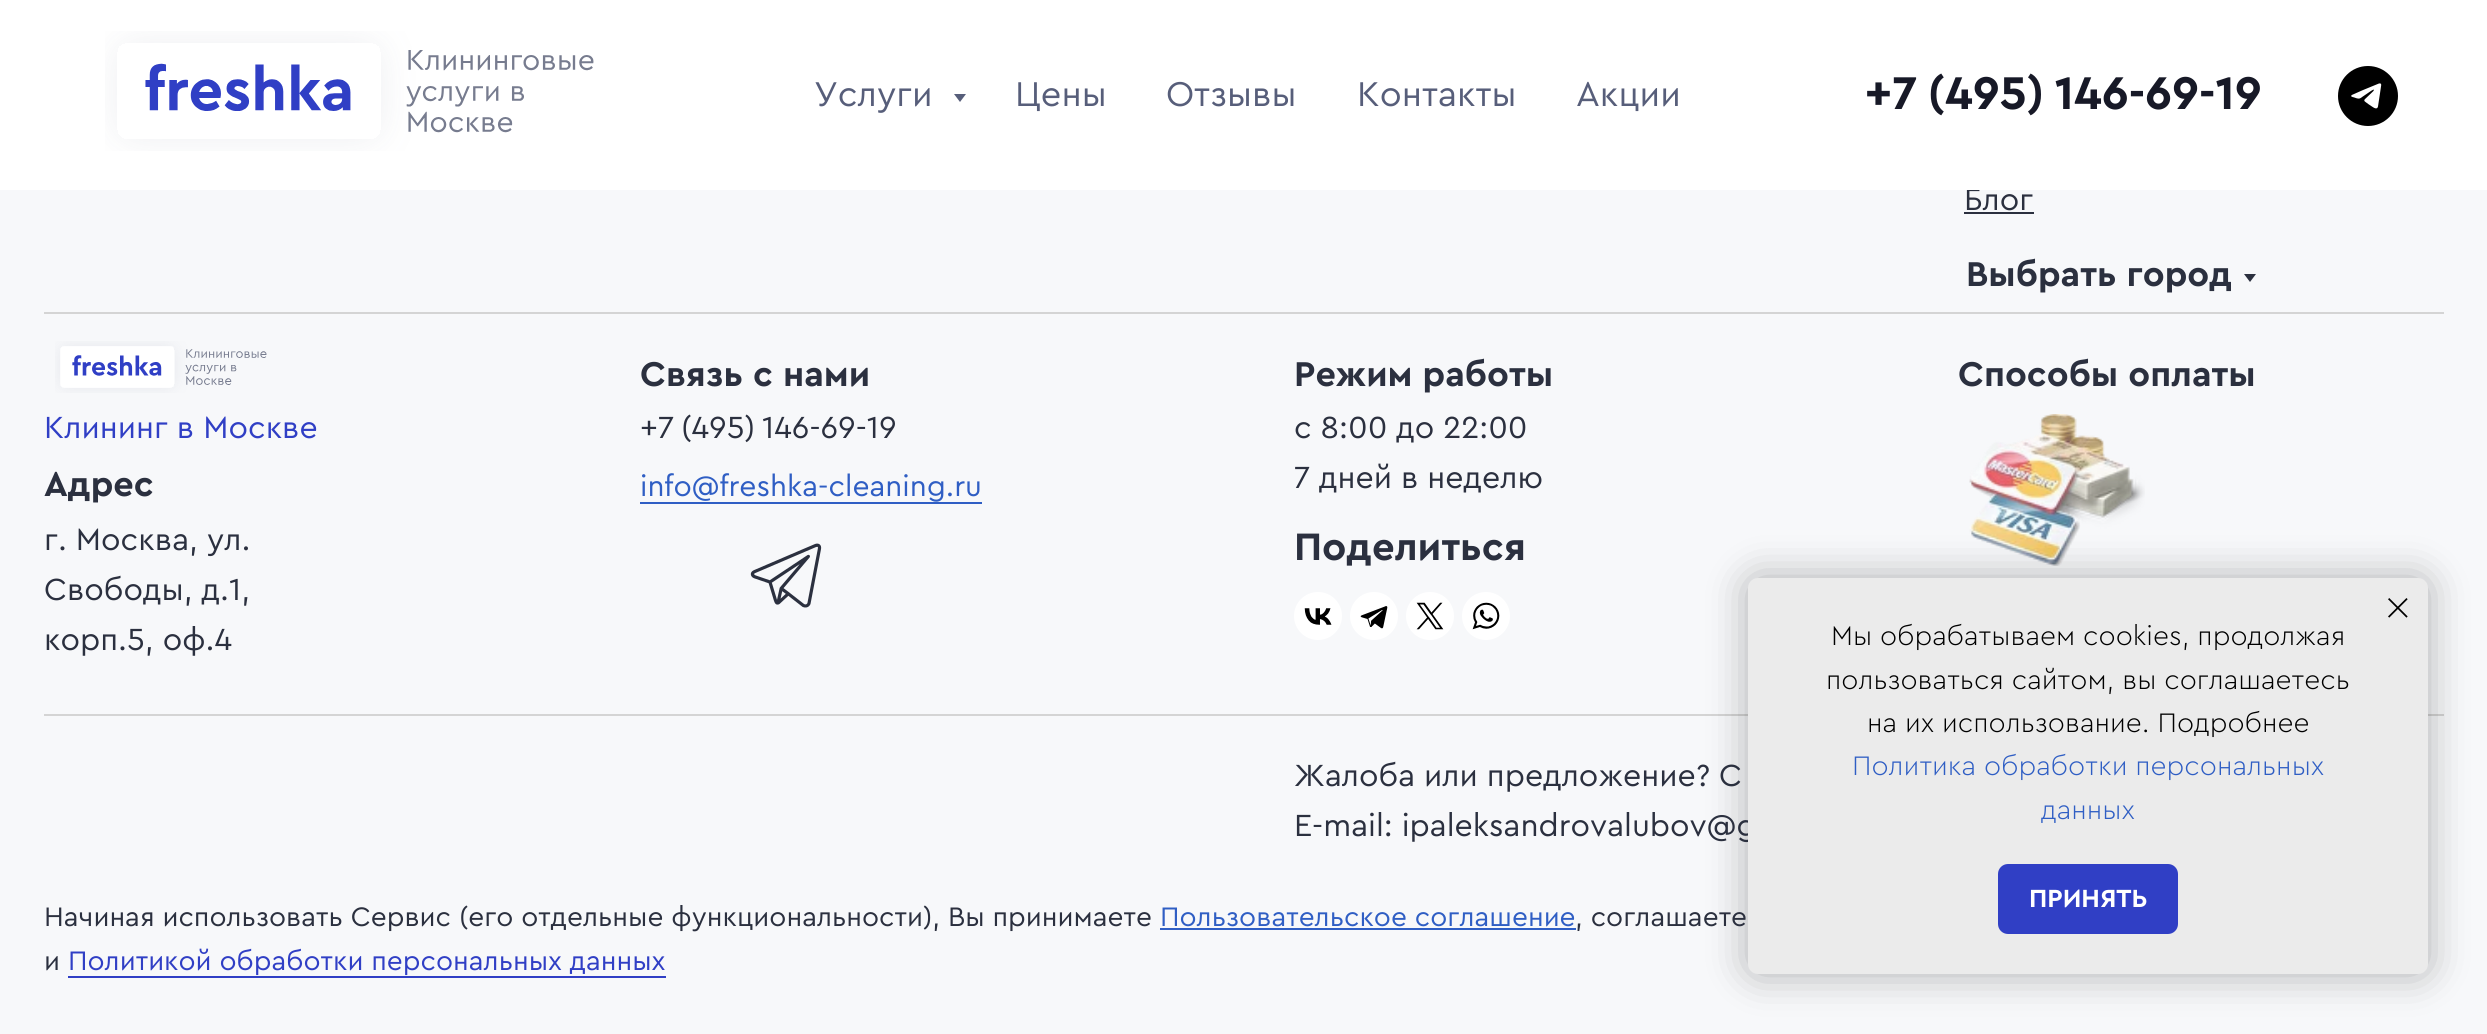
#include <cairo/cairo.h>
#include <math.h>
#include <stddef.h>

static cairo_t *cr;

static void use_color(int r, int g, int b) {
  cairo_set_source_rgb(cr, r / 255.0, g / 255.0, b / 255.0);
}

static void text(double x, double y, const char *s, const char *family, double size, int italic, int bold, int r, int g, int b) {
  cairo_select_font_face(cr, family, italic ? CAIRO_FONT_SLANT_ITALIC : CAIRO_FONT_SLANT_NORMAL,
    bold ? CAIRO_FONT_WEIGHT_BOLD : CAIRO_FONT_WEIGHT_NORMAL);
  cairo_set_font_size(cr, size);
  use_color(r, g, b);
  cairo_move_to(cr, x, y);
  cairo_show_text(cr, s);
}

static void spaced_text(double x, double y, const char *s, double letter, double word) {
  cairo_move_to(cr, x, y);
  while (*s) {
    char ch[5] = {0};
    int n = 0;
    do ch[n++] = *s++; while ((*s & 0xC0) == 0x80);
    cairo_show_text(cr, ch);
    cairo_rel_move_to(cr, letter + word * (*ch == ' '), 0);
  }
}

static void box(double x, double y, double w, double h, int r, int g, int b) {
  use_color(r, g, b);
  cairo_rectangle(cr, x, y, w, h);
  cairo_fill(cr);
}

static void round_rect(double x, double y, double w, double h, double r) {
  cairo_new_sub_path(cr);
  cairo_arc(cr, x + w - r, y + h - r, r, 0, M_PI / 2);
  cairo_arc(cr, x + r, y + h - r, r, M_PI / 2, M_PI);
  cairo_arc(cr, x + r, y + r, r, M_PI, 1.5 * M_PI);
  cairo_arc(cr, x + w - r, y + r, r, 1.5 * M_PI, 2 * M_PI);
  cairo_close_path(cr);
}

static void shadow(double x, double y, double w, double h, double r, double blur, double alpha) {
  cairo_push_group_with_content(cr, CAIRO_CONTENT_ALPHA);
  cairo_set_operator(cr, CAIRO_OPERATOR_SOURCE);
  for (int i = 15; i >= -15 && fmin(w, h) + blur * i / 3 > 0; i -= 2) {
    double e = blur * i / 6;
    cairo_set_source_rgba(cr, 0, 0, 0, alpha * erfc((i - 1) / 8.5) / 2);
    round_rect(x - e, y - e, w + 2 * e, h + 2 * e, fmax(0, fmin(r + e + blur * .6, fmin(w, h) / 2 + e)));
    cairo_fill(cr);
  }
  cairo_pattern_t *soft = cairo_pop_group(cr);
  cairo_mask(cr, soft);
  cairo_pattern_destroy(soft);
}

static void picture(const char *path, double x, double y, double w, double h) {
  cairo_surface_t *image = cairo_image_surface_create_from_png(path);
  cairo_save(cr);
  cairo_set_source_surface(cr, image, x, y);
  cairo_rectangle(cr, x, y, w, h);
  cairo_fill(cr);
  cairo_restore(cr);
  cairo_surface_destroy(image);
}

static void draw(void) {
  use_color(247, 248, 250);
  cairo_paint(cr);
  box(1964, 212, 70, 2, 43, 48, 63);
  cairo_new_path(cr);
  cairo_move_to(cr, 2244, 274);
  cairo_line_to(cr, 2256, 274);
  cairo_line_to(cr, 2250, 282);
  cairo_close_path(cr);
  cairo_fill(cr);
  box(44, 312, 2400, 2, 212, 212, 212);
  picture("img_03.png", 55, 341, 212, 52);
  picture("img_04.png", 1969, 414, 176, 152);
  box(640, 502, 342, 2, 47, 94, 196);
  picture("img_05.png", 750, 543, 72, 65);
  use_color(255, 255, 255);
  cairo_arc(cr, 1318, 616, 24, 0, 2 * M_PI);
  cairo_fill(cr);
  picture("img_06.png", 1304, 608, 28, 17);
  cairo_arc(cr, 1374, 616, 24, 0, 2 * M_PI);
  cairo_fill(cr);
  picture("img_07.png", 1360, 606, 28, 23);
  cairo_arc(cr, 1430, 616, 24, 0, 2 * M_PI);
  cairo_fill(cr);
  picture("img_08.png", 1416, 602, 28, 28);
  cairo_arc(cr, 1486, 616, 24, 0, 2 * M_PI);
  cairo_fill(cr);
  picture("img_09.png", 1472, 602, 28, 28);
  box(44, 714, 2400, 2, 212, 212, 212);
  box(1160, 928, 416, 2, 47, 94, 196);
  box(68, 976, 598, 2, 48, 63, 197);
  use_color(0, 0, 0);
  shadow(1748, 578, 680, 396, 10, 20, 0.3);
  text(1964, 210, "Блог", "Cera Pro", 32, 0, 0, 43, 48, 63);
  box(0, 0, 2487, 190, 255, 255, 255);
  text(1576, 106, "Акции", "Cera Pro", 36, 0, 0, 87, 94, 122);
  text(1357, 106, "Контакты", "Cera Pro", 36, 0, 0, 87, 94, 122);
  text(1166, 106, "Отзывы", "Cera Pro", 36, 0, 0, 87, 94, 122);
  text(1015, 106, "Цены", "Cera Pro", 36, 0, 0, 87, 94, 122);
  cairo_new_path(cr);
  cairo_move_to(cr, 954, 94);
  cairo_line_to(cr, 966, 94);
  cairo_line_to(cr, 960, 102);
  cairo_close_path(cr);
  cairo_fill(cr);
  text(814, 106, "Услуги", "Cera Pro", 36, 0, 0, 87, 94, 122);
  picture("img_02.png", 2338, 66, 60, 60);
  cairo_select_font_face(cr, "Cera Pro", CAIRO_FONT_SLANT_NORMAL, CAIRO_FONT_WEIGHT_BOLD);
  cairo_set_font_size(cr, 48);
  use_color(23, 25, 39);
  spaced_text(1865, 109, "+7 (495) 146-69-19", 0, -3);
  picture("img_01.png", 105, 31, 489, 120);
  text(1966, 286, "Выбрать город", "Cera Pro", 36, 0, 1, 43, 48, 63);
  text(640, 386, "Связь с нами", "Cera Pro", 36, 0, 1, 43, 48, 63);
  text(1294, 386, "Режим работы", "Cera Pro", 36, 0, 1, 43, 48, 63);
  text(1958, 386, "Способы оплаты", "Cera Pro", 36, 0, 1, 43, 48, 63);
  text(44, 438, "Клининг в Москве", "Cera Pro", 32, 0, 0, 48, 63, 197);
  use_color(43, 48, 63);
  spaced_text(640, 438, "+7 (495) 146-69-19", 0, -2);
  text(1294, 438, "с 8:00 до 22:00", "Cera Pro", 32, 0, 0, 43, 48, 63);
  text(1294, 488, "7 дней в неделю", "Cera Pro", 32, 0, 0, 43, 48, 63);
  text(44, 496, "Адрес", "Cera Pro", 36, 0, 1, 43, 48, 63);
  text(640, 496, "info@freshka-cleaning.ru", "Cera Pro", 30, 0, 0, 47, 94, 196);
  text(44, 550, "г. Москва, ул.", "Cera Pro", 32, 0, 0, 43, 48, 63);
  text(44, 600, "Свободы, д.1,", "Cera Pro", 32, 0, 0, 43, 48, 63);
  text(44, 650, "корп.5, оф.4", "Cera Pro", 32, 0, 0, 43, 48, 63);
  text(1294, 560, "Поделиться", "Cera Pro", 40, 0, 1, 43, 48, 63);
  text(1294, 786, "Жалоба или предложение? С", "Cera Pro", 32, 0, 0, 43, 48, 63);
  text(1294, 836, "E-mail: ipaleksandrovalubov@g", "Cera Pro", 32, 0, 0, 43, 48, 63);
  text(44, 926, "Начиная использовать Сервис (его отдельные функциональности), Вы принимаете", "Cera Pro", 28, 0, 0, 43, 48, 63);
  text(1160, 926, "Пользовательское соглашение", "Cera Pro", 28, 0, 0, 47, 94, 196);
  text(1575, 926, ", соглашаете", "Cera Pro", 28, 0, 0, 43, 48, 63);
  text(44, 970, "и", "Cera Pro", 28, 0, 0, 43, 48, 63);
  text(68, 970, "Политикой обработки персональных данных", "Cera Pro", 28, 0, 0, 48, 63, 197);
  use_color(235, 235, 235);
  round_rect(1748, 578, 680, 396, 10);
  cairo_fill(cr);
  picture("img_10.png", 2388, 598, 20, 20);
  text(1831, 645, "Мы обрабатываем cookies, продолжая", "Cera Pro Light", 28, 0, 0, 0, 0, 0);
  text(1826, 689, "пользоваться сайтом, вы соглашаетесь", "Cera Pro Light", 28, 0, 0, 0, 0, 0);
  text(1867, 732, "на их использование. Подробнее", "Cera Pro Light", 28, 0, 0, 0, 0, 0);
  text(1852, 775, "Политика обработки персональных", "Cera Pro Light", 28, 0, 0, 47, 94, 196);
  text(2041, 819, "данных", "Cera Pro Light", 28, 0, 0, 47, 94, 196);
  use_color(48, 63, 197);
  round_rect(1998, 864, 180, 70, 10);
  cairo_fill(cr);
  text(2029, 907, "ПРИНЯТЬ", "Cera Pro", 26, 0, 1, 255, 255, 255);
}

int main(void) {
  cairo_surface_t *surface = cairo_image_surface_create(CAIRO_FORMAT_RGB24, 2487, 1034);
  cr = cairo_create(surface);
  cairo_font_options_t *options = cairo_font_options_create();
  cairo_font_options_set_hint_metrics(options, CAIRO_HINT_METRICS_OFF);
  cairo_font_options_set_hint_style(options, CAIRO_HINT_STYLE_NONE);
  cairo_set_font_options(cr, options);
  cairo_set_miter_limit(cr, 4);
  draw();
  cairo_surface_write_to_png(surface, "out.png");
  cairo_font_options_destroy(options);
  cairo_destroy(cr);
  cairo_surface_destroy(surface);
  return 0;
}
